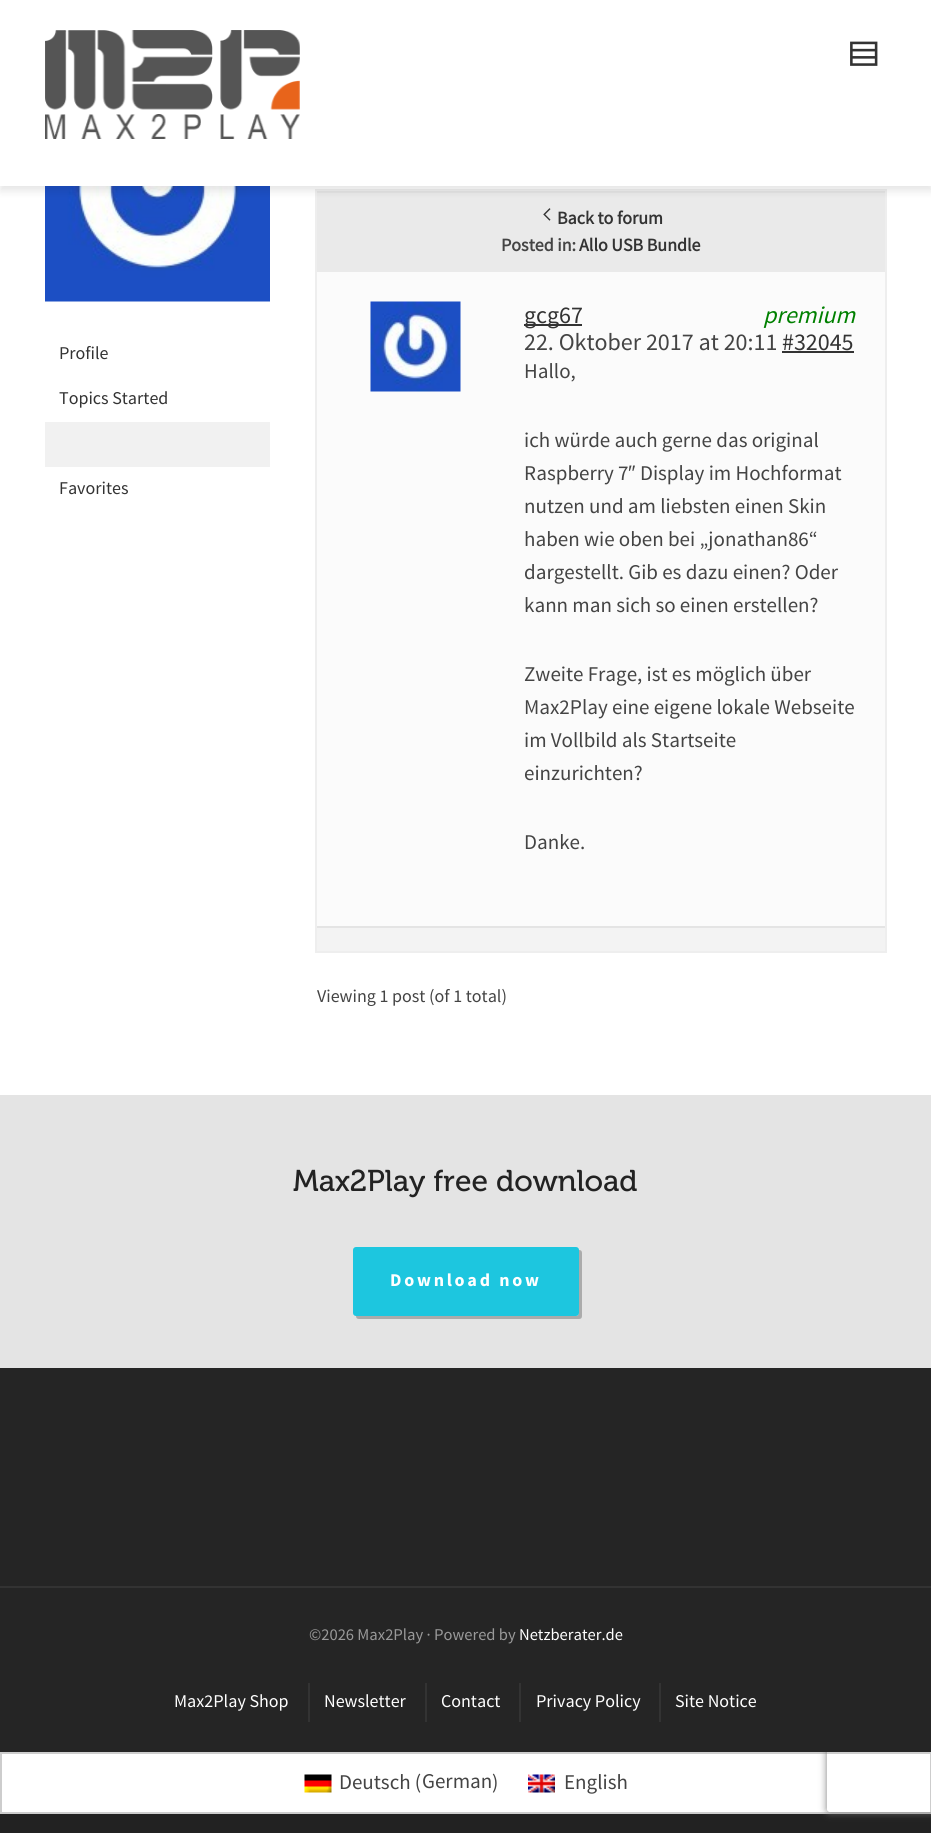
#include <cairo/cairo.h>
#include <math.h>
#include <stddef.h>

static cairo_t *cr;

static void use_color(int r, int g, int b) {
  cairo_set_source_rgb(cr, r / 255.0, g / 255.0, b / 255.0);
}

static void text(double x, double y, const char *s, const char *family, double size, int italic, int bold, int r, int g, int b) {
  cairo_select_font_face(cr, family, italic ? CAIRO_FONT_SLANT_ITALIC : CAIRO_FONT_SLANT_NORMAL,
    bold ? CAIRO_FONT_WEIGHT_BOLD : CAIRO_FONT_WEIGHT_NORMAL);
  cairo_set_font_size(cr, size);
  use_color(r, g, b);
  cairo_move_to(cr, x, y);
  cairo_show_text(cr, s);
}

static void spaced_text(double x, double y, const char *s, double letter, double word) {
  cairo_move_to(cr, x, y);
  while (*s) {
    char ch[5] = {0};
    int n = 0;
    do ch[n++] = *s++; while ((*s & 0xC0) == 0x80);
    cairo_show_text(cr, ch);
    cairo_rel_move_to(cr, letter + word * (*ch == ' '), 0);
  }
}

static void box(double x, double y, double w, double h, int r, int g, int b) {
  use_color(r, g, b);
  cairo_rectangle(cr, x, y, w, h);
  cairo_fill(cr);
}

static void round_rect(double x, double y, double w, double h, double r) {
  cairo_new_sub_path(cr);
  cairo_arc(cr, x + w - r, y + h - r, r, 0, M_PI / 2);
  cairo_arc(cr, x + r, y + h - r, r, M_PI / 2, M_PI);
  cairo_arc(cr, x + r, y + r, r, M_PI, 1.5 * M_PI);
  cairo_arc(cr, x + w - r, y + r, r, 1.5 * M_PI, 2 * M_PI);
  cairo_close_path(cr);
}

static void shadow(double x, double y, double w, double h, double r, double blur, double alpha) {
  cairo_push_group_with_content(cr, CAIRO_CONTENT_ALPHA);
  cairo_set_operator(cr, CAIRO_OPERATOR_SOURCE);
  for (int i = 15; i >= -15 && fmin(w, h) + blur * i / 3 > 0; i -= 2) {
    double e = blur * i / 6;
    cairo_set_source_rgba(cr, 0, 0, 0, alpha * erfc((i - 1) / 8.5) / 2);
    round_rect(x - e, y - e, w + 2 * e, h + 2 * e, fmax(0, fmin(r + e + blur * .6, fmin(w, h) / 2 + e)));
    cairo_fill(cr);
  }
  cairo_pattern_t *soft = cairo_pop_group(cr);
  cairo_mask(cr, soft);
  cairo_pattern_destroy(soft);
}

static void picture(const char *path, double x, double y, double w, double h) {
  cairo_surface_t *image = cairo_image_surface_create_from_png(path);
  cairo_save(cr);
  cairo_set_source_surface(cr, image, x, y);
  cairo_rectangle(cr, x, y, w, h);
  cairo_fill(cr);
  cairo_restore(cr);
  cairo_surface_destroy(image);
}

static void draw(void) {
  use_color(34, 34, 34);
  cairo_paint(cr);
  box(0, 186, 931, 909, 255, 255, 255);
  picture("img_03.png", 45, 186, 225, 116);
  cairo_rectangle(cr, 316, 190, 570, 762);
  use_color(238, 238, 238);
  cairo_stroke(cr);
  box(317, 193, 568, 79, 234, 234, 234);
  box(317, 191, 568, 2, 228, 228, 228);
  use_color(0, 0, 0);
  shadow(0, 5, 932, 186, 0, 4, 0.1);
  box(0, 0, 931, 186, 255, 255, 255);
  picture("img_01.png", 45, 30, 255, 109);
  picture("img_02.png", 850, 41, 28, 25);
  box(45, 422, 225, 45, 241, 241, 241);
  picture("img_04.png", 543, 208, 8, 13);
  box(317, 272, 568, 654, 251, 251, 251);
  picture("img_05.png", 370, 301, 91, 91);
  box(524, 324, 58, 2, 51, 51, 51);
  box(782, 351, 72, 2, 51, 51, 51);
  box(317, 928, 568, 23, 243, 243, 243);
  box(317, 926, 568, 2, 228, 228, 228);
  box(0, 1095, 931, 273, 228, 228, 228);
  use_color(171, 171, 171);
  cairo_new_path(cr);
  cairo_move_to(cr, 356, 1316);
  cairo_curve_to(cr, 356, 1318, 357, 1319, 359, 1319);
  cairo_line_to(cr, 579, 1319);
  cairo_curve_to(cr, 581, 1319, 582, 1318, 582, 1316);
  cairo_line_to(cr, 582, 1253);
  cairo_curve_to(cr, 582, 1251, 581, 1250, 579, 1250);
  cairo_line_to(cr, 579, 1312);
  cairo_curve_to(cr, 579, 1314, 578, 1316, 576, 1316);
  cairo_close_path(cr);
  cairo_fill(cr);
  use_color(29, 198, 223);
  round_rect(353, 1247, 226, 69, 3);
  cairo_fill(cr);
  box(0, 1368, 931, 218, 37, 37, 37);
  use_color(255, 255, 255);
  cairo_rectangle(cr, 1, 1753, 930, 60);
  cairo_fill_preserve(cr);
  use_color(205, 205, 205);
  cairo_stroke(cr);
  cairo_save(cr);
  cairo_set_fill_rule(cr, CAIRO_FILL_RULE_EVEN_ODD);
  cairo_new_path(cr);
  cairo_move_to(cr, 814, 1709);
  cairo_line_to(cr, 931, 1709);
  cairo_line_to(cr, 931, 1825);
  cairo_line_to(cr, 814, 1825);
  cairo_close_path(cr);
  cairo_move_to(cr, 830, 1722);
  cairo_line_to(cr, 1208, 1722);
  cairo_curve_to(cr, 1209.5, 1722, 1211, 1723.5, 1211, 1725);
  cairo_line_to(cr, 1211, 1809);
  cairo_curve_to(cr, 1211, 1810.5, 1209.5, 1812, 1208, 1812);
  cairo_line_to(cr, 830, 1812);
  cairo_curve_to(cr, 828.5, 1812, 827, 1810.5, 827, 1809);
  cairo_line_to(cr, 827, 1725);
  cairo_curve_to(cr, 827, 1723.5, 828.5, 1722, 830, 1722);
  cairo_close_path(cr);
  cairo_clip(cr);
  use_color(128, 128, 128);
  shadow(827, 1722, 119, 90, 3, 4, 1);
  cairo_restore(cr);
  box(0, 1588, 931, 164, 37, 37, 37);
  box(0, 1586, 931, 2, 51, 51, 51);
  box(308, 1683, 2, 39, 51, 51, 51);
  box(425, 1683, 2, 39, 51, 51, 51);
  box(519, 1683, 2, 39, 51, 51, 51);
  box(659, 1683, 2, 39, 51, 51, 51);
  picture("img_06.png", 304, 1774, 28, 19);
  picture("img_07.png", 528, 1774, 27, 19);
  text(59, 359, "Profile", "Source Sans Pro", 18, 0, 0, 51, 51, 51);
  text(59, 404, "Topics Started", "Source Sans Pro", 18, 0, 0, 51, 51, 51);
  text(59, 494, "Favorites", "Source Sans Pro", 18, 0, 0, 51, 51, 51);
  text(557, 224, "Back to forum", "Source Sans Pro", 18, 0, 1, 51, 51, 51);
  text(501, 251, "Posted in:", "Source Sans Pro", 18, 0, 1, 68, 68, 68);
  text(579, 251, "Allo USB Bundle", "Source Sans Pro", 18, 0, 1, 51, 51, 51);
  text(524, 323, "gcg67", "Source Sans Pro", 24, 0, 0, 51, 51, 51);
  text(763, 323, "premium", "Source Sans Pro", 24, 1, 0, 0, 128, 0);
  text(524, 350, "22. Oktober 2017 at 20:11", "Source Sans Pro", 24, 0, 0, 68, 68, 68);
  text(782, 350, "#32045", "Source Sans Pro", 24, 0, 0, 51, 51, 51);
  text(524, 378, "Hallo,", "Source Sans Pro", 21, 0, 0, 68, 68, 68);
  text(524, 447, "ich würde auch gerne das original", "Source Sans Pro", 21, 0, 0, 68, 68, 68);
  text(524, 480, "Raspberry 7", "Source Sans Pro", 21, 0, 0, 68, 68, 68);
  text(628, 480, "″", "Liberation Sans", 21, 0, 0, 68, 68, 68);
  text(640, 480, "Display im Hochformat", "Source Sans Pro", 21, 0, 0, 68, 68, 68);
  text(524, 513, "nutzen und am liebsten einen Skin", "Source Sans Pro", 21, 0, 0, 68, 68, 68);
  text(524, 546, "haben wie oben bei „jonathan86“", "Source Sans Pro", 21, 0, 0, 68, 68, 68);
  text(524, 579, "dargestellt. Gib es dazu einen? Oder", "Source Sans Pro", 21, 0, 0, 68, 68, 68);
  text(524, 612, "kann man sich so einen erstellen?", "Source Sans Pro", 21, 0, 0, 68, 68, 68);
  text(524, 681, "Zweite Frage, ist es möglich über", "Source Sans Pro", 21, 0, 0, 68, 68, 68);
  text(524, 714, "Max2Play eine eigene lokale Webseite", "Source Sans Pro", 21, 0, 0, 68, 68, 68);
  text(524, 747, "im Vollbild als Startseite", "Source Sans Pro", 21, 0, 0, 68, 68, 68);
  text(524, 780, "einzurichten?", "Source Sans Pro", 21, 0, 0, 68, 68, 68);
  text(524, 849, "Danke.", "Source Sans Pro", 21, 0, 0, 68, 68, 68);
  text(317, 1002, "Viewing 1 post (of 1 total)", "Source Sans Pro", 18, 0, 0, 68, 68, 68);
  text(293, 1191, "Max2Play free download", "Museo", 30, 0, 0, 34, 34, 34);
  cairo_select_font_face(cr, "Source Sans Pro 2", CAIRO_FONT_SLANT_NORMAL, CAIRO_FONT_WEIGHT_BOLD);
  cairo_set_font_size(cr, 18);
  use_color(255, 255, 255);
  spaced_text(390, 1286, "Download now", 2.75, 0);
  text(309, 1640, "©2026 Max2Play · Powered by", "Source Sans Pro", 16.5, 0, 0, 153, 153, 153);
  text(519, 1640, "Netzberater.de", "Source Sans Pro", 16.5, 0, 0, 255, 255, 255);
  text(174, 1707, "Max2Play Shop", "Source Sans Pro", 18, 0, 0, 255, 255, 255);
  text(324, 1707, "Newsletter", "Source Sans Pro", 18, 0, 0, 255, 255, 255);
  text(441, 1707, "Contact", "Source Sans Pro", 18, 0, 0, 255, 255, 255);
  text(536, 1707, "Privacy Policy", "Source Sans Pro", 18, 0, 0, 255, 255, 255);
  text(675, 1707, "Site Notice", "Source Sans Pro", 18, 0, 0, 255, 255, 255);
  text(339, 1789, "Deutsch (", "Source Sans Pro", 21, 0, 0, 68, 68, 68);
  text(422, 1788, "German", "Source Sans Pro", 21, 0, 0, 68, 68, 68);
  text(492, 1789, ")", "Source Sans Pro", 21, 0, 0, 68, 68, 68);
  text(564, 1789, "English", "Source Sans Pro", 21, 0, 0, 68, 68, 68);
}

int main(void) {
  cairo_surface_t *surface = cairo_image_surface_create(CAIRO_FORMAT_RGB24, 931, 1833);
  cr = cairo_create(surface);
  cairo_font_options_t *options = cairo_font_options_create();
  cairo_font_options_set_hint_metrics(options, CAIRO_HINT_METRICS_OFF);
  cairo_font_options_set_hint_style(options, CAIRO_HINT_STYLE_NONE);
  cairo_set_font_options(cr, options);
  cairo_set_miter_limit(cr, 4);
  draw();
  cairo_surface_write_to_png(surface, "out.png");
  cairo_font_options_destroy(options);
  cairo_destroy(cr);
  cairo_surface_destroy(surface);
  return 0;
}
